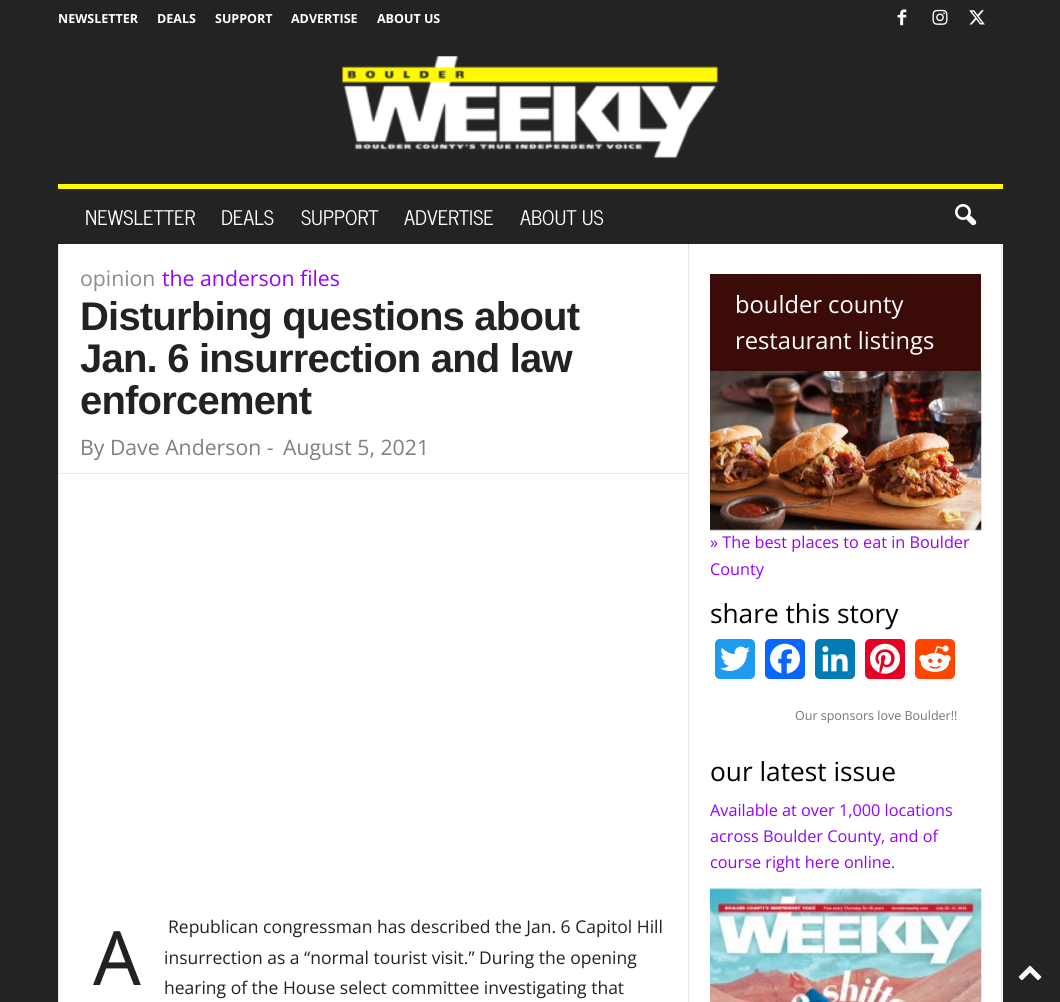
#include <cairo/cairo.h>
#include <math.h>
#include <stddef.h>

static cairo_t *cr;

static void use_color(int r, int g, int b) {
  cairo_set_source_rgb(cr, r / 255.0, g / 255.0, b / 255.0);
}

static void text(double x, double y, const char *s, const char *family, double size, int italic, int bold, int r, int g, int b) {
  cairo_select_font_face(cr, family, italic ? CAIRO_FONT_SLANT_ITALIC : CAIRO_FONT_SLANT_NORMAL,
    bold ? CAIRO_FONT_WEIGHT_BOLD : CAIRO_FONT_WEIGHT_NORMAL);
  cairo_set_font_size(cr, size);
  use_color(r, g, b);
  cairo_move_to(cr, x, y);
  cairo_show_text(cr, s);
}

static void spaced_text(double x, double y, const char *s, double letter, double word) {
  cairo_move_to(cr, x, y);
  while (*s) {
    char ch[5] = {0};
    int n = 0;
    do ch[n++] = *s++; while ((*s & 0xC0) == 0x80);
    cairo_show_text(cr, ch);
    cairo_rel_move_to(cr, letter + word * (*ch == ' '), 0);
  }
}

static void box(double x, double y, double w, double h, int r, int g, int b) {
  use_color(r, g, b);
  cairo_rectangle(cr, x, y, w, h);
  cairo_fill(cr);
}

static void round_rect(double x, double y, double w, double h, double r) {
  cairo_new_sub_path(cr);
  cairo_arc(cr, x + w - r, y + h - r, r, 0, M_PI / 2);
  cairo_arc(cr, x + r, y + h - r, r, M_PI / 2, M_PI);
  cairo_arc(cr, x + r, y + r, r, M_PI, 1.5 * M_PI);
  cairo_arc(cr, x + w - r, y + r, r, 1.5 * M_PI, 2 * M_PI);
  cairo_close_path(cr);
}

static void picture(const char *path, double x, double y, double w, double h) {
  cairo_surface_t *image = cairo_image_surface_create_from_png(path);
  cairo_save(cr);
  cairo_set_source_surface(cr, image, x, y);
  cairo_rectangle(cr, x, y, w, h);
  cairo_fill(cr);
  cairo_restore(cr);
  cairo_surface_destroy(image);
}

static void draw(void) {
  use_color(35, 35, 35);
  cairo_paint(cr);
  picture("img_01.png", 897, 9, 10, 17);
  picture("img_02.png", 932, 9, 16, 16);
  picture("img_03.png", 969, 10, 16, 15);
  picture("img_04.png", 342, 56, 376, 102);
  box(58, 184, 945, 5, 255, 250, 0);
  picture("img_05.png", 955, 204, 22, 22);
  box(59, 244, 944, 758, 255, 255, 255);
  box(58, 244, 1, 758, 230, 230, 230);
  box(59, 473, 629, 1, 230, 230, 230);
  box(688, 244, 1, 758, 230, 230, 230);
  box(710, 274, 271, 97, 59, 11, 9);
  picture("img_06.png", 710, 371, 272, 160);
  use_color(29, 155, 240);
  round_rect(715, 639, 40, 40, 5);
  cairo_fill(cr);
  picture("img_07.png", 720, 646, 30, 25);
  use_color(8, 102, 255);
  round_rect(765, 639, 40, 40, 5);
  cairo_fill(cr);
  picture("img_08.png", 770, 643, 30, 31);
  use_color(0, 123, 181);
  round_rect(815, 639, 40, 40, 5);
  cairo_fill(cr);
  picture("img_09.png", 822, 646, 26, 26);
  use_color(230, 0, 35);
  round_rect(865, 639, 40, 40, 5);
  cairo_fill(cr);
  picture("img_10.png", 870, 643, 30, 31);
  use_color(255, 69, 0);
  round_rect(915, 639, 40, 40, 5);
  cairo_fill(cr);
  picture("img_11.png", 919, 645, 32, 27);
  picture("img_12.png", 710, 888, 272, 114);
  box(1001, 244, 1, 758, 230, 230, 230);
  picture("img_13.png", 1018, 965, 24, 16);
  text(58, 23, "NEWSLETTER", "Open Sans", 12.5, 0, 1, 255, 255, 255);
  text(157, 23, "DEALS", "Open Sans", 12.5, 0, 1, 255, 255, 255);
  text(215, 23, "SUPPORT", "Open Sans", 12.5, 0, 1, 255, 255, 255);
  text(291, 23, "ADVERTISE", "Open Sans", 12.5, 0, 1, 255, 255, 255);
  text(377, 23, "ABOUT US", "Open Sans", 12.5, 0, 1, 255, 255, 255);
  text(85, 225, "NEWSLETTER", "News Cycle", 20, 0, 0, 255, 255, 255);
  text(221, 225, "DEALS", "News Cycle", 20, 0, 0, 255, 255, 255);
  text(301, 225, "SUPPORT", "News Cycle", 20, 0, 0, 255, 255, 255);
  text(404, 225, "ADVERTISE", "News Cycle", 20, 0, 0, 255, 255, 255);
  text(520, 225, "ABOUT US", "News Cycle", 20, 0, 0, 255, 255, 255);
  text(80, 286, "opinion", "Open Sans", 21.25, 0, 0, 140, 140, 140);
  text(162, 286, "the anderson files", "Open Sans", 21.25, 0, 0, 150, 0, 255);
  cairo_select_font_face(cr, "Liberation Sans", CAIRO_FONT_SLANT_NORMAL, CAIRO_FONT_WEIGHT_BOLD);
  cairo_set_font_size(cr, 40);
  use_color(34, 34, 34);
  spaced_text(80, 330, "Disturbing questions about", -0.8, 0);
  spaced_text(80, 372, "Jan. 6 insurrection and law", -0.8, 0);
  spaced_text(80, 414, "enforcement", -0.8, 0);
  text(80, 455, "By Dave Anderson -", "Open Sans", 21.25, 0, 0, 128, 128, 128);
  text(283, 455, "August 5, 2021", "Open Sans", 21.25, 0, 0, 128, 128, 128);
  text(168, 933, "Republican congressman has described the Jan. 6 Capitol Hill", "Open Sans", 17.5, 0, 0, 34, 34, 34);
  text(93, 985, "A", "Noto Sans", 75, 0, 0, 34, 34, 34);
  text(164, 964, "insurrection as a “normal tourist visit.” During the opening", "Open Sans", 17.5, 0, 0, 34, 34, 34);
  text(164, 994, "hearing of the House select committee investigating that", "Open Sans", 17.5, 0, 0, 34, 34, 34);
  text(735, 313, "boulder county", "Open Sans", 23.75, 0, 0, 255, 255, 255);
  text(735, 349, "restaurant listings", "Open Sans", 23.75, 0, 0, 255, 255, 255);
  text(710, 548, "» The best places to eat in Boulder", "Open Sans", 16.25, 0, 0, 150, 0, 255);
  text(710, 575, "County", "Open Sans", 16.25, 0, 0, 150, 0, 255);
  text(710, 623, "share this story", "Open Sans", 26.25, 0, 0, 0, 0, 0);
  text(795, 720, "Our sponsors love Boulder!!", "Open Sans", 12.5, 0, 0, 118, 118, 118);
  text(710, 781, "our latest issue", "Open Sans", 26.25, 0, 0, 0, 0, 0);
  text(710, 816, "Available at over 1,000 locations", "Open Sans", 16.25, 0, 0, 150, 0, 255);
  text(710, 842, "across Boulder County, and of", "Open Sans", 16.25, 0, 0, 150, 0, 255);
  text(710, 868, "course right here online.", "Open Sans", 16.25, 0, 0, 150, 0, 255);
}

int main(void) {
  cairo_surface_t *surface = cairo_image_surface_create(CAIRO_FORMAT_RGB24, 1060, 1002);
  cr = cairo_create(surface);
  cairo_font_options_t *options = cairo_font_options_create();
  cairo_font_options_set_hint_metrics(options, CAIRO_HINT_METRICS_OFF);
  cairo_font_options_set_hint_style(options, CAIRO_HINT_STYLE_NONE);
  cairo_set_font_options(cr, options);
  cairo_set_miter_limit(cr, 4);
  draw();
  cairo_surface_write_to_png(surface, "out.png");
  cairo_font_options_destroy(options);
  cairo_destroy(cr);
  cairo_surface_destroy(surface);
  return 0;
}
